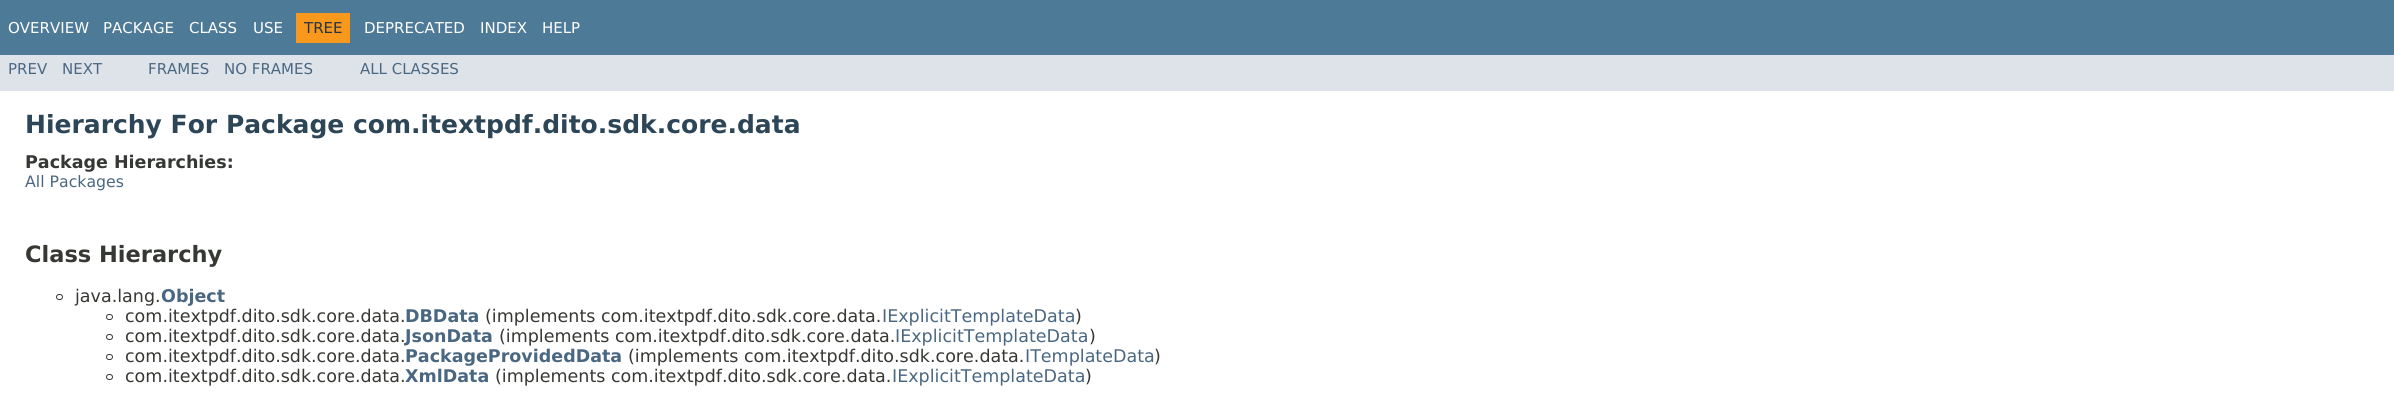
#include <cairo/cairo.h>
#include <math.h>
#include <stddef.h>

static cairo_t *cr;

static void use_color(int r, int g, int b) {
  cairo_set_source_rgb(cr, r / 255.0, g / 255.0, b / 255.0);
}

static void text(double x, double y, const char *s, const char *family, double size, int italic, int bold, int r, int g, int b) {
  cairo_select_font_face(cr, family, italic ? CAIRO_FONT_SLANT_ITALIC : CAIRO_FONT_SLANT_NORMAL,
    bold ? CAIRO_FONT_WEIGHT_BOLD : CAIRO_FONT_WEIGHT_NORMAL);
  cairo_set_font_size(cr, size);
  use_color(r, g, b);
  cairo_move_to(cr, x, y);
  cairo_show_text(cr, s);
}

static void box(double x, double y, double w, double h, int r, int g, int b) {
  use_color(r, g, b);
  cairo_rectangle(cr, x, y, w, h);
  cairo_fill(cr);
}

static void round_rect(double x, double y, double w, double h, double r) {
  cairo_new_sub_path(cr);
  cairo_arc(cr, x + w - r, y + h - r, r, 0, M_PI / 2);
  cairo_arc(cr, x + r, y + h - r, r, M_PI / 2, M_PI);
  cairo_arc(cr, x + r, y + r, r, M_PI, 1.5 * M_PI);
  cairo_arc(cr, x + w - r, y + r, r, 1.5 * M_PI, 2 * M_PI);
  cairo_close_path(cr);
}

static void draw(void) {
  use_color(255, 255, 255);
  cairo_paint(cr);
  box(0, 0, 2394, 55, 77, 122, 151);
  box(296, 13, 54, 30, 248, 152, 29);
  box(0, 55, 2394, 36, 222, 227, 233);
  round_rect(56.5, 294.5, 6, 5, 2.5);
  use_color(53, 56, 51);
  cairo_set_line_width(cr, 1);
  cairo_stroke(cr);
  round_rect(106.5, 314.5, 6, 5, 2.5);
  cairo_stroke(cr);
  round_rect(106.5, 334.5, 6, 5, 2.5);
  cairo_stroke(cr);
  round_rect(106.5, 354.5, 6, 5, 2.5);
  cairo_stroke(cr);
  round_rect(106.5, 374.5, 6, 5, 2.5);
  cairo_stroke(cr);
  text(8, 33, "OVERVIEW", "DejaVu Sans", 15, 0, 0, 255, 255, 255);
  text(103, 33, "PACKAGE", "DejaVu Sans", 15, 0, 0, 255, 255, 255);
  text(189, 33, "CLASS", "DejaVu Sans", 15, 0, 0, 255, 255, 255);
  text(253, 33, "USE", "DejaVu Sans", 15, 0, 0, 255, 255, 255);
  text(304, 33, "TREE", "DejaVu Sans", 15, 0, 0, 37, 52, 65);
  text(364, 33, "DEPRECATED", "DejaVu Sans", 15, 0, 0, 255, 255, 255);
  text(480, 33, "INDEX", "DejaVu Sans", 15, 0, 0, 255, 255, 255);
  text(542, 33, "HELP", "DejaVu Sans", 15, 0, 0, 255, 255, 255);
  text(8, 74, "PREV", "DejaVu Sans", 15, 0, 0, 74, 103, 130);
  text(62, 74, "NEXT", "DejaVu Sans", 15, 0, 0, 74, 103, 130);
  text(148, 74, "FRAMES", "DejaVu Sans", 15, 0, 0, 74, 103, 130);
  text(224, 74, "NO FRAMES", "DejaVu Sans", 15, 0, 0, 74, 103, 130);
  text(360, 74, "ALL CLASSES", "DejaVu Sans", 15, 0, 0, 74, 103, 130);
  text(25, 133, "Hierarchy For Package com.itextpdf.dito.sdk.core.data", "DejaVu Sans", 25, 0, 1, 44, 69, 87);
  text(25, 168, "Package Hierarchies:", "DejaVu Sans", 17.5, 0, 1, 53, 56, 51);
  text(25, 187, "All Packages", "DejaVu Sans", 15.75, 0, 0, 74, 103, 130);
  text(25, 262, "Class Hierarchy", "DejaVu Sans", 22.5, 0, 1, 53, 56, 51);
  text(75, 302, "java.lang.", "DejaVu Sans", 17.5, 0, 0, 53, 56, 51);
  text(161, 302, "Object", "DejaVu Sans", 17.5, 0, 1, 74, 103, 130);
  text(125, 322, "com.itextpdf.dito.sdk.core.data.", "DejaVu Sans", 17.5, 0, 0, 53, 56, 51);
  text(405, 322, "DBData", "DejaVu Sans", 17.5, 0, 1, 74, 103, 130);
  text(485, 322, "(implements com.itextpdf.dito.sdk.core.data.", "DejaVu Sans", 17.5, 0, 0, 53, 56, 51);
  text(882, 322, "IExplicitTemplateData", "DejaVu Sans", 17.5, 0, 0, 74, 103, 130);
  text(1075, 322, ")", "DejaVu Sans", 17.5, 0, 0, 53, 56, 51);
  text(125, 342, "com.itextpdf.dito.sdk.core.data.", "DejaVu Sans", 17.5, 0, 0, 53, 56, 51);
  text(405, 342, "JsonData", "DejaVu Sans", 17.5, 0, 1, 74, 103, 130);
  text(499, 342, "(implements com.itextpdf.dito.sdk.core.data.", "DejaVu Sans", 17.5, 0, 0, 53, 56, 51);
  text(895, 342, "IExplicitTemplateData", "DejaVu Sans", 17.5, 0, 0, 74, 103, 130);
  text(1089, 342, ")", "DejaVu Sans", 17.5, 0, 0, 53, 56, 51);
  text(125, 362, "com.itextpdf.dito.sdk.core.data.", "DejaVu Sans", 17.5, 0, 0, 53, 56, 51);
  text(405, 362, "PackageProvidedData", "DejaVu Sans", 17.5, 0, 1, 74, 103, 130);
  text(628, 362, "(implements com.itextpdf.dito.sdk.core.data.", "DejaVu Sans", 17.5, 0, 0, 53, 56, 51);
  text(1025, 362, "ITemplateData", "DejaVu Sans", 17.5, 0, 0, 74, 103, 130);
  text(1154, 362, ")", "DejaVu Sans", 17.5, 0, 0, 53, 56, 51);
  text(125, 382, "com.itextpdf.dito.sdk.core.data.", "DejaVu Sans", 17.5, 0, 0, 53, 56, 51);
  text(405, 382, "XmlData", "DejaVu Sans", 17.5, 0, 1, 74, 103, 130);
  text(495, 382, "(implements com.itextpdf.dito.sdk.core.data.", "DejaVu Sans", 17.5, 0, 0, 53, 56, 51);
  text(892, 382, "IExplicitTemplateData", "DejaVu Sans", 17.5, 0, 0, 74, 103, 130);
  text(1085, 382, ")", "DejaVu Sans", 17.5, 0, 0, 53, 56, 51);
}

int main(void) {
  cairo_surface_t *surface = cairo_image_surface_create(CAIRO_FORMAT_RGB24, 2394, 406);
  cr = cairo_create(surface);
  cairo_font_options_t *options = cairo_font_options_create();
  cairo_font_options_set_hint_metrics(options, CAIRO_HINT_METRICS_OFF);
  cairo_font_options_set_hint_style(options, CAIRO_HINT_STYLE_NONE);
  cairo_set_font_options(cr, options);
  cairo_set_miter_limit(cr, 4);
  draw();
  cairo_surface_write_to_png(surface, "out.png");
  cairo_font_options_destroy(options);
  cairo_destroy(cr);
  cairo_surface_destroy(surface);
  return 0;
}
